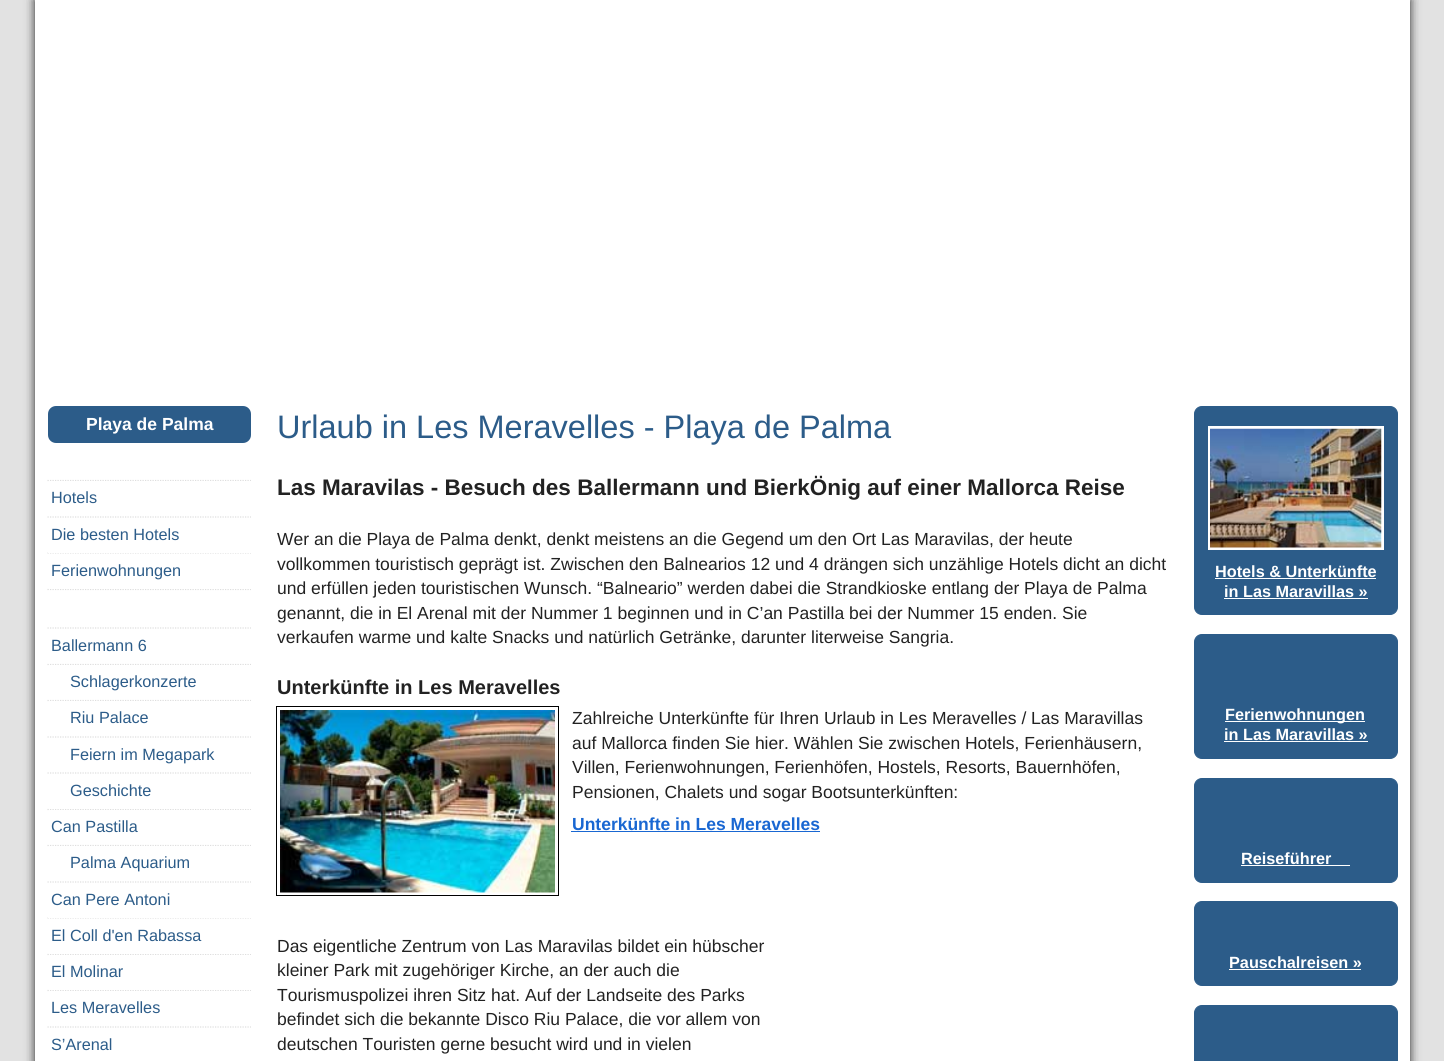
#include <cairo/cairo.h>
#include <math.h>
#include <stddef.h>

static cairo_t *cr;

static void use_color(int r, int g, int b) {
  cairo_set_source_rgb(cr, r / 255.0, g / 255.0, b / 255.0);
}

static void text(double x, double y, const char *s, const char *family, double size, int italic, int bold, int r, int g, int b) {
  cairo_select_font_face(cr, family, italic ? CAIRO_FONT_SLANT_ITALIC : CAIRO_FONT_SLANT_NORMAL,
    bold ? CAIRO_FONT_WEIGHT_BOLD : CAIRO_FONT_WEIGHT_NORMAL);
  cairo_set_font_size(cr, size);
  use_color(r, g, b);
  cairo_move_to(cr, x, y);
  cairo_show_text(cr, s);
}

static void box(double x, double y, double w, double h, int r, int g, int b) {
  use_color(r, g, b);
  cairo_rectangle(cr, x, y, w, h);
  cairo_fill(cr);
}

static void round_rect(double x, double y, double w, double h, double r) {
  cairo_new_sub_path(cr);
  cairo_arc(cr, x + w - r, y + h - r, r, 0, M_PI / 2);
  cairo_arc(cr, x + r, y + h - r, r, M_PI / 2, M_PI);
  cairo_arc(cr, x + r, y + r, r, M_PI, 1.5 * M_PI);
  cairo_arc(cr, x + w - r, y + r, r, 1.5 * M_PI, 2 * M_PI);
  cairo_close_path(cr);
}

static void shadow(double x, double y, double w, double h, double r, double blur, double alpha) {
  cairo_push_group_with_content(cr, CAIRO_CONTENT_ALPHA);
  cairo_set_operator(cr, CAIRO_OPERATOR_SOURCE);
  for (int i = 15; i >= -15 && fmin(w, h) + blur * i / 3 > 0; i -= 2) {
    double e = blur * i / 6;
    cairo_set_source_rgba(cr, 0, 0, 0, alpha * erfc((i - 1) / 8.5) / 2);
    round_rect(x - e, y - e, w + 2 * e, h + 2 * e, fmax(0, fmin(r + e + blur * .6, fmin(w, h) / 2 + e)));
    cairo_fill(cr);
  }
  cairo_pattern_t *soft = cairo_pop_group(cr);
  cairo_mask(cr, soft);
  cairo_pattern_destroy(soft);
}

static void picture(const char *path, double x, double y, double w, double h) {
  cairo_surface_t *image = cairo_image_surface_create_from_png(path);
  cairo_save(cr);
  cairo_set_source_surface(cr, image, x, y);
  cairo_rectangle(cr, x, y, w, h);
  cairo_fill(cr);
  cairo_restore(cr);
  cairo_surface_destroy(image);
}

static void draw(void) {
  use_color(226, 226, 226);
  cairo_paint(cr);
  use_color(34, 34, 34);
  shadow(35, 0, 1375, 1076, 0, 5, 1);
  box(35, 0, 1375, 1061, 255, 255, 255);
  use_color(44, 92, 137);
  round_rect(48, 406, 203, 37, 8);
  cairo_fill(cr);
  cairo_new_path(cr);
  cairo_move_to(cr, 47.5, 480.5);
  cairo_line_to(cr, 251, 480.5);
  use_color(222, 222, 222);
  cairo_set_line_width(cr, 1.2);
  cairo_set_dash(cr, (double[]){1.25, 1.25}, 2, 0);
  cairo_stroke(cr);
  cairo_new_path(cr);
  cairo_move_to(cr, 47.5, 517);
  cairo_line_to(cr, 251, 517);
  cairo_stroke(cr);
  box(50, 481, 201, 1, 255, 255, 255);
  cairo_new_path(cr);
  cairo_move_to(cr, 47.5, 553);
  cairo_line_to(cr, 251, 553);
  use_color(222, 222, 222);
  cairo_stroke(cr);
  box(48, 552, 203, 1, 255, 255, 255);
  cairo_new_path(cr);
  cairo_move_to(cr, 47.5, 589.5);
  cairo_line_to(cr, 251, 589.5);
  use_color(222, 222, 222);
  cairo_stroke(cr);
  box(50, 588, 201, 1, 255, 255, 255);
  cairo_new_path(cr);
  cairo_move_to(cr, 47.5, 628);
  cairo_line_to(cr, 251, 628);
  use_color(222, 222, 222);
  cairo_stroke(cr);
  cairo_new_path(cr);
  cairo_move_to(cr, 47.5, 809.5);
  cairo_line_to(cr, 251, 809.5);
  cairo_stroke(cr);
  box(50, 808, 201, 1, 255, 255, 255);
  cairo_new_path(cr);
  cairo_move_to(cr, 47.5, 664.5);
  cairo_line_to(cr, 251, 664.5);
  use_color(222, 222, 222);
  cairo_stroke(cr);
  box(50, 665, 201, 1, 255, 255, 255);
  cairo_new_path(cr);
  cairo_move_to(cr, 47.5, 700.5);
  cairo_line_to(cr, 251, 700.5);
  use_color(222, 222, 222);
  cairo_stroke(cr);
  box(50, 701, 201, 1, 255, 255, 255);
  cairo_new_path(cr);
  cairo_move_to(cr, 47.5, 737);
  cairo_line_to(cr, 251, 737);
  use_color(222, 222, 222);
  cairo_stroke(cr);
  cairo_new_path(cr);
  cairo_move_to(cr, 47.5, 773);
  cairo_line_to(cr, 251, 773);
  cairo_stroke(cr);
  cairo_new_path(cr);
  cairo_move_to(cr, 47.5, 882);
  cairo_line_to(cr, 251, 882);
  cairo_stroke(cr);
  box(50, 810, 201, 1, 255, 255, 255);
  cairo_new_path(cr);
  cairo_move_to(cr, 47.5, 845.5);
  cairo_line_to(cr, 251, 845.5);
  use_color(222, 222, 222);
  cairo_stroke(cr);
  box(50, 846, 201, 1, 255, 255, 255);
  cairo_new_path(cr);
  cairo_move_to(cr, 47.5, 918);
  cairo_line_to(cr, 251, 918);
  use_color(222, 222, 222);
  cairo_stroke(cr);
  box(48, 917, 203, 1, 255, 255, 255);
  cairo_new_path(cr);
  cairo_move_to(cr, 47.5, 954.5);
  cairo_line_to(cr, 251, 954.5);
  use_color(222, 222, 222);
  cairo_stroke(cr);
  box(50, 953, 201, 1, 255, 255, 255);
  cairo_new_path(cr);
  cairo_move_to(cr, 47.5, 990.5);
  cairo_line_to(cr, 251, 990.5);
  use_color(222, 222, 222);
  cairo_stroke(cr);
  box(50, 955, 201, 35, 255, 255, 255);
  cairo_new_path(cr);
  cairo_move_to(cr, 47.5, 1027);
  cairo_line_to(cr, 251, 1027);
  use_color(222, 222, 222);
  cairo_stroke(cr);
  box(50, 991, 201, 1, 255, 255, 255);
  cairo_rectangle(cr, 276.5, 706.5, 282, 189);
  use_color(0, 0, 0);
  cairo_set_line_width(cr, 1);
  cairo_set_dash(cr, NULL, 0, 0);
  cairo_stroke(cr);
  picture("img_01.png", 280, 710, 275, 183);
  box(571, 831, 249, 1, 25, 103, 210);
  use_color(44, 92, 137);
  round_rect(1194.5, 406.5, 203, 208, 7.5);
  cairo_fill_preserve(cr);
  cairo_stroke(cr);
  cairo_rectangle(cr, 1209.5, 427.5, 173, 121);
  use_color(255, 255, 255);
  cairo_set_line_width(cr, 3);
  cairo_stroke(cr);
  picture("img_02.png", 1210, 428, 172, 120);
  box(1215, 578, 161, 1, 255, 255, 255);
  box(1224, 598, 144, 1, 255, 255, 255);
  use_color(44, 92, 137);
  round_rect(1194.5, 634.5, 203, 124, 7.5);
  cairo_fill_preserve(cr);
  cairo_set_line_width(cr, 1);
  cairo_stroke(cr);
  box(1225, 721, 140, 1, 255, 255, 255);
  box(1224, 741, 144, 1, 255, 255, 255);
  use_color(44, 92, 137);
  round_rect(1194.5, 778.5, 203, 104, 7.5);
  cairo_fill_preserve(cr);
  cairo_stroke(cr);
  box(1241, 865, 109, 1, 255, 255, 255);
  use_color(44, 92, 137);
  round_rect(1194.5, 901.5, 203, 84, 7.5);
  cairo_fill_preserve(cr);
  cairo_stroke(cr);
  box(1229, 969, 132, 1, 255, 255, 255);
  use_color(44, 92, 137);
  round_rect(1194.5, 1005.5, 203, 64, 7.5);
  cairo_fill_preserve(cr);
  cairo_stroke(cr);
  text(86, 430, "Playa de Palma", "Liberation Sans", 17.5, 0, 1, 255, 255, 255);
  text(51, 503, "Hotels", "Liberation Sans", 16.25, 0, 0, 44, 92, 137);
  text(51, 540, "Die besten Hotels", "Liberation Sans", 16.25, 0, 0, 44, 92, 137);
  text(51, 576, "Ferienwohnungen", "Liberation Sans", 16.25, 0, 0, 44, 92, 137);
  text(51, 651, "Ballermann 6", "Liberation Sans", 16.25, 0, 0, 44, 92, 137);
  text(70, 687, "Schlagerkonzerte", "Liberation Sans", 16.25, 0, 0, 44, 92, 137);
  text(70, 723, "Riu Palace", "Liberation Sans", 16.25, 0, 0, 44, 92, 137);
  text(70, 760, "Feiern im Megapark", "Liberation Sans", 16.25, 0, 0, 44, 92, 137);
  text(70, 796, "Geschichte", "Liberation Sans", 16.25, 0, 0, 44, 92, 137);
  text(51, 832, "Can Pastilla", "Liberation Sans", 16.25, 0, 0, 44, 92, 137);
  text(70, 868, "Palma Aquarium", "Liberation Sans", 16.25, 0, 0, 44, 92, 137);
  text(51, 905, "Can Pere Antoni", "Liberation Sans", 16.25, 0, 0, 44, 92, 137);
  text(51, 941, "El Coll d'en Rabassa", "Liberation Sans", 16.25, 0, 0, 44, 92, 137);
  text(51, 977, "El Molinar", "Liberation Sans", 16.25, 0, 0, 44, 92, 137);
  text(51, 1013, "Les Meravelles", "Liberation Sans", 16.25, 0, 0, 44, 92, 137);
  text(51, 1050, "S’Arenal", "Liberation Sans", 16.25, 0, 0, 44, 92, 137);
  text(277, 438, "Urlaub in Les Meravelles - Playa de Palma", "Liberation Sans", 32.5, 0, 0, 44, 92, 137);
  text(277, 495, "Las Maravilas - Besuch des Ballermann und BierkÖnig auf einer Mallorca Reise", "Liberation Sans", 22.5, 0, 1, 34, 34, 34);
  text(277, 545, "Wer an die Playa de Palma denkt, denkt meistens an die Gegend um den Ort Las Maravilas, der heute", "Liberation Sans", 17.5, 0, 0, 34, 34, 34);
  text(277, 570, "vollkommen touristisch geprägt ist. Zwischen den Balnearios 12 und 4 drängen sich unzählige Hotels dicht an dicht", "Liberation Sans", 17.5, 0, 0, 34, 34, 34);
  text(277, 594, "und erfüllen jeden touristischen Wunsch. “Balneario” werden dabei die Strandkioske entlang der Playa de Palma", "Liberation Sans", 17.5, 0, 0, 34, 34, 34);
  text(277, 619, "genannt, die in El Arenal mit der Nummer 1 beginnen und in C’an Pastilla bei der Nummer 15 enden. Sie", "Liberation Sans", 17.5, 0, 0, 34, 34, 34);
  text(277, 643, "verkaufen warme und kalte Snacks und natürlich Getränke, darunter literweise Sangria.", "Liberation Sans", 17.5, 0, 0, 34, 34, 34);
  text(277, 694, "Unterkünfte in Les Meravelles", "Liberation Sans", 20, 0, 1, 34, 34, 34);
  text(572, 724, "Zahlreiche Unterkünfte für Ihren Urlaub in Les Meravelles / Las Maravillas", "Liberation Sans", 17.5, 0, 0, 34, 34, 34);
  text(572, 749, "auf Mallorca finden Sie hier. Wählen Sie zwischen Hotels, Ferienhäusern,", "Liberation Sans", 17.5, 0, 0, 34, 34, 34);
  text(572, 773, "Villen, Ferienwohnungen, Ferienhöfen, Hostels, Resorts, Bauernhöfen,", "Liberation Sans", 17.5, 0, 0, 34, 34, 34);
  text(572, 798, "Pensionen, Chalets und sogar Bootsunterkünften:", "Liberation Sans", 17.5, 0, 0, 34, 34, 34);
  text(572, 830, "Unterkünfte in Les Meravelles", "Liberation Sans", 17.5, 0, 1, 25, 103, 210);
  text(277, 952, "Das eigentliche Zentrum von Las Maravilas bildet ein hübscher", "Liberation Sans", 17.5, 0, 0, 34, 34, 34);
  text(277, 976, "kleiner Park mit zugehöriger Kirche, an der auch die", "Liberation Sans", 17.5, 0, 0, 34, 34, 34);
  text(277, 1001, "Tourismuspolizei ihren Sitz hat. Auf der Landseite des Parks", "Liberation Sans", 17.5, 0, 0, 34, 34, 34);
  text(277, 1025, "befindet sich die bekannte Disco Riu Palace, die vor allem von", "Liberation Sans", 17.5, 0, 0, 34, 34, 34);
  text(277, 1050, "deutschen Touristen gerne besucht wird und in vielen", "Liberation Sans", 17.5, 0, 0, 34, 34, 34);
  text(1215, 577, "Hotels & Unterkünfte", "Liberation Sans", 16.25, 0, 1, 255, 255, 255);
  text(1224, 597, "in Las Maravillas »", "Liberation Sans", 16.25, 0, 1, 255, 255, 255);
  text(1225, 720, "Ferienwohnungen", "Liberation Sans", 16.25, 0, 1, 255, 255, 255);
  text(1224, 740, "in Las Maravillas »", "Liberation Sans", 16.25, 0, 1, 255, 255, 255);
  text(1241, 864, "Reiseführer", "Liberation Sans", 16.25, 0, 1, 255, 255, 255);
  text(1229, 968, "Pauschalreisen »", "Liberation Sans", 16.25, 0, 1, 255, 255, 255);
}

int main(void) {
  cairo_surface_t *surface = cairo_image_surface_create(CAIRO_FORMAT_RGB24, 1444, 1061);
  cr = cairo_create(surface);
  cairo_font_options_t *options = cairo_font_options_create();
  cairo_font_options_set_hint_metrics(options, CAIRO_HINT_METRICS_OFF);
  cairo_font_options_set_hint_style(options, CAIRO_HINT_STYLE_NONE);
  cairo_set_font_options(cr, options);
  cairo_set_miter_limit(cr, 4);
  draw();
  cairo_surface_write_to_png(surface, "out.png");
  cairo_font_options_destroy(options);
  cairo_destroy(cr);
  cairo_surface_destroy(surface);
  return 0;
}
